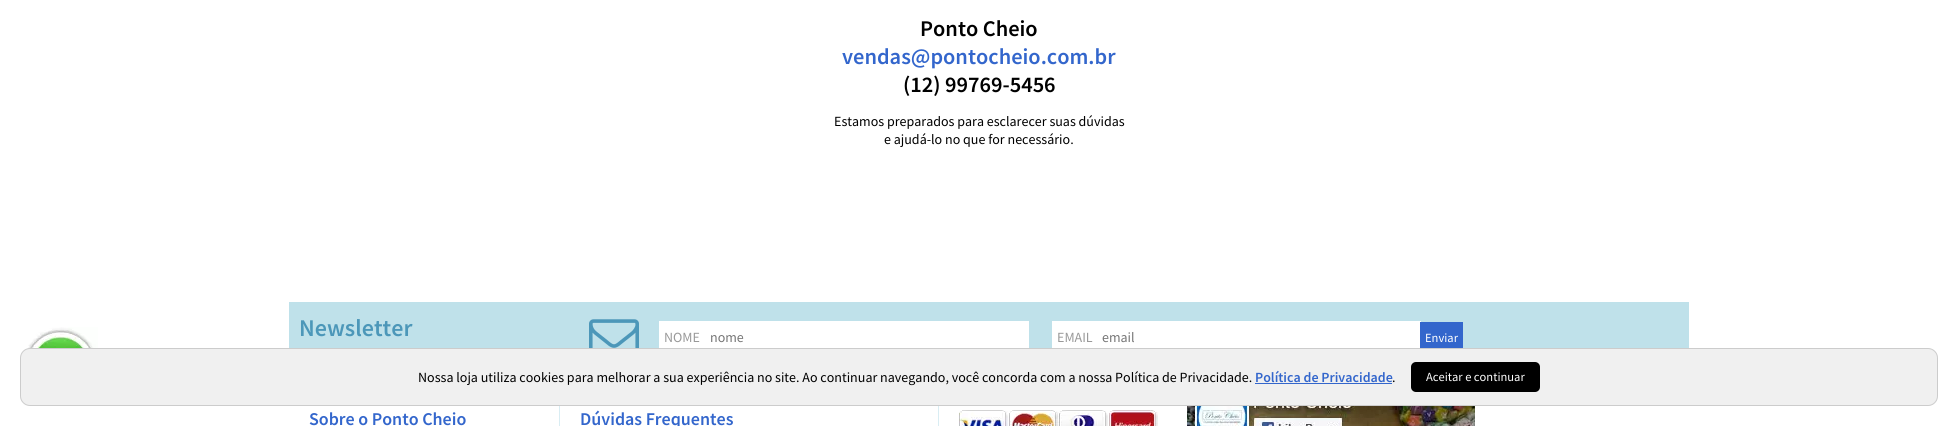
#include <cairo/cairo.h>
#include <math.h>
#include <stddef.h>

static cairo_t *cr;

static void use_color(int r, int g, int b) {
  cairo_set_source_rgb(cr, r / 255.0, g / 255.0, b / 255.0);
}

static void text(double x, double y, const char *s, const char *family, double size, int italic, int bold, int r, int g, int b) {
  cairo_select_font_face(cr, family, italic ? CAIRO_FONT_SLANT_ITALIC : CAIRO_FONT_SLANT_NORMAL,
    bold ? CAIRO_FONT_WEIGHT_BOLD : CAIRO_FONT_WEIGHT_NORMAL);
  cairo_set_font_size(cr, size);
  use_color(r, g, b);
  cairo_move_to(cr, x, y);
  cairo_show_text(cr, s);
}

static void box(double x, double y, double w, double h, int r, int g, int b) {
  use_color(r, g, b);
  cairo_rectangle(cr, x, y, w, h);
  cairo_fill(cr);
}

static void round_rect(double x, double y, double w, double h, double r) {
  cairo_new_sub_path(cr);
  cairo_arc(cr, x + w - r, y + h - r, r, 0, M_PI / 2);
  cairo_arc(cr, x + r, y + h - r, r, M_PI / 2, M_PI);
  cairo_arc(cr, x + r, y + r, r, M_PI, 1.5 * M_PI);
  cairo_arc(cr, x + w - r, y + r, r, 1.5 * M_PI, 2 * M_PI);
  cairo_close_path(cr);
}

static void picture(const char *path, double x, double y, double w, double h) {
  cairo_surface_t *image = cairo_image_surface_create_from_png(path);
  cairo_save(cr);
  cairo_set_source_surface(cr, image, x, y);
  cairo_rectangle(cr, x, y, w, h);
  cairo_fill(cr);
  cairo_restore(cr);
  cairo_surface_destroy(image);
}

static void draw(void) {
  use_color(255, 255, 255);
  cairo_paint(cr);
  box(289, 302, 1400, 46, 191, 225, 234);
  picture("img_01.png", 589, 319, 50, 29);
  box(659, 321, 370, 27, 255, 255, 255);
  box(1052, 321, 369, 27, 255, 255, 255);
  box(1420, 322, 43, 26, 51, 102, 204);
  picture("img_02.png", 21, 327, 77, 79);
  box(938, 406, 1, 20, 217, 237, 243);
  box(559, 406, 1, 20, 217, 237, 243);
  picture("img_03.png", 959, 410, 199, 16);
  picture("img_04.png", 1187, 406, 288, 20);
  use_color(240, 240, 240);
  round_rect(20.5, 348.5, 1917, 57, 9.5);
  cairo_fill_preserve(cr);
  use_color(204, 204, 204);
  cairo_set_line_width(cr, 1);
  cairo_stroke(cr);
  box(1255, 383, 137, 1, 51, 102, 204);
  use_color(0, 0, 0);
  round_rect(1411, 362, 129, 30, 5);
  cairo_fill(cr);
  text(920, 36, "Ponto Cheio", "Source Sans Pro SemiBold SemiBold", 22.4, 0, 0, 0, 0, 0);
  text(842, 64, "vendas@pontocheio.com.br", "Source Sans Pro SemiBold SemiBold", 22.4, 0, 0, 51, 102, 204);
  text(903, 92, "(12) 99769-5456", "Source Sans Pro SemiBold SemiBold", 22.4, 0, 0, 0, 0, 0);
  text(834, 126, "Estamos preparados para esclarecer suas dúvidas", "Source Sans Pro", 14, 0, 0, 0, 0, 0);
  text(884, 144, "e ajudá-lo no que for necessário.", "Source Sans Pro", 14, 0, 0, 0, 0, 0);
  text(299, 336, "Newsletter", "Source Sans Pro SemiBold SemiBold", 24, 0, 0, 76, 151, 185);
  text(664, 342, "NOME", "Source Sans Pro", 14, 0, 0, 153, 153, 153);
  text(710, 342, "nome", "Source Sans Pro", 14, 0, 0, 117, 117, 117);
  text(1057, 342, "EMAIL", "Source Sans Pro", 14, 0, 0, 153, 153, 153);
  text(1102, 342, "email", "Source Sans Pro", 14, 0, 0, 117, 117, 117);
  text(1425, 342, "Enviar", "Source Sans Pro", 12.5, 0, 0, 255, 255, 255);
  text(309, 425, "Sobre o Ponto Cheio", "Source Sans Pro SemiBold SemiBold", 18, 0, 0, 51, 102, 204);
  text(580, 425, "Dúvidas Frequentes", "Source Sans Pro SemiBold SemiBold", 18, 0, 0, 51, 102, 204);
  text(418, 382, "Nossa loja utiliza cookies para melhorar a sua experiência no site. Ao continuar navegando, você concorda com a nossa Política de Privacidade.", "Source Sans Pro", 14, 0, 0, 0, 0, 0);
  text(1255, 382, "Política de Privacidade", "Source Sans Pro SemiBold SemiBold", 14, 0, 0, 51, 102, 204);
  text(1392, 382, ".", "Source Sans Pro", 14, 0, 0, 0, 0, 0);
  text(1426, 381, "Aceitar e continuar", "Source Sans Pro", 12.5, 0, 0, 255, 255, 255);
}

int main(void) {
  cairo_surface_t *surface = cairo_image_surface_create(CAIRO_FORMAT_RGB24, 1958, 426);
  cr = cairo_create(surface);
  cairo_font_options_t *options = cairo_font_options_create();
  cairo_font_options_set_hint_metrics(options, CAIRO_HINT_METRICS_OFF);
  cairo_font_options_set_hint_style(options, CAIRO_HINT_STYLE_NONE);
  cairo_set_font_options(cr, options);
  cairo_set_miter_limit(cr, 4);
  draw();
  cairo_surface_write_to_png(surface, "out.png");
  cairo_font_options_destroy(options);
  cairo_destroy(cr);
  cairo_surface_destroy(surface);
  return 0;
}
